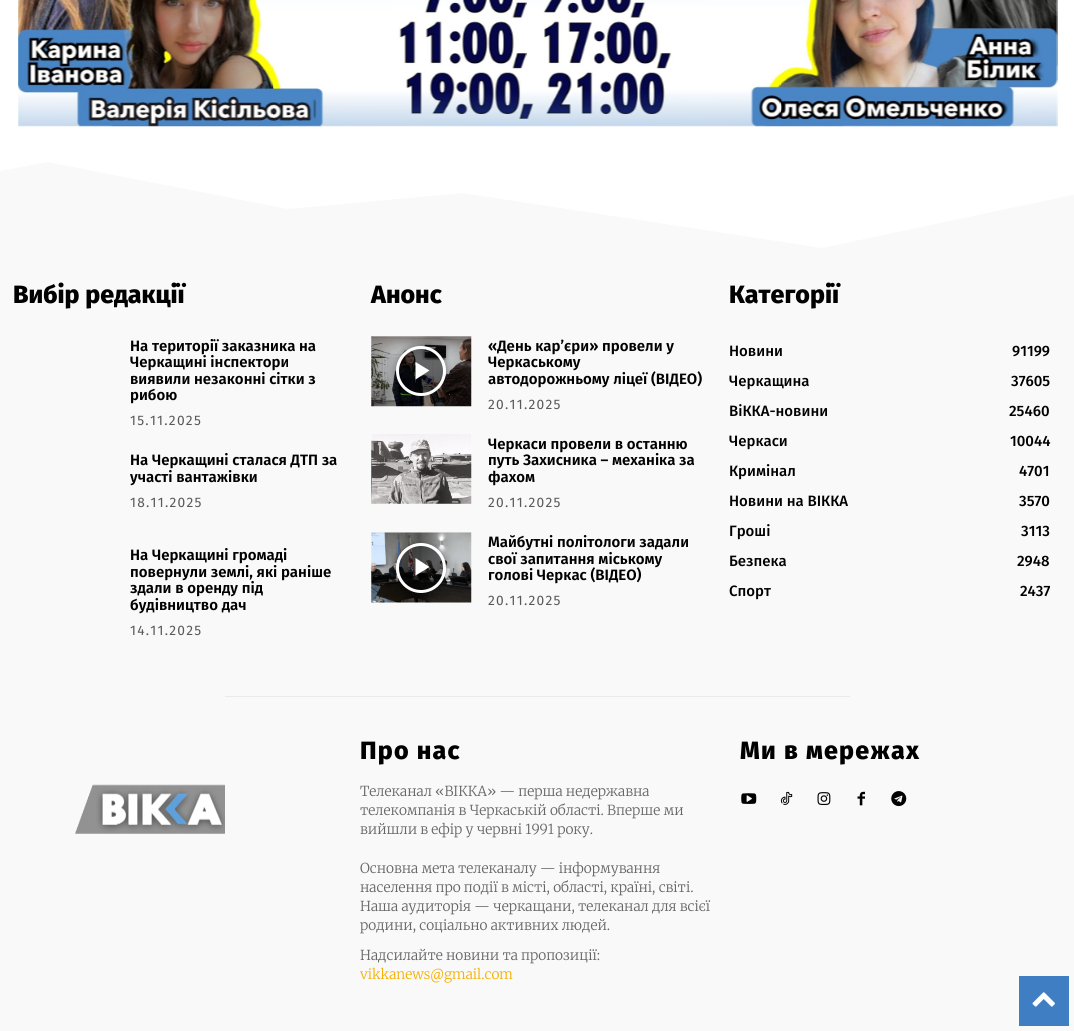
#include <cairo/cairo.h>
#include <math.h>
#include <stddef.h>

static cairo_t *cr;

static void use_color(int r, int g, int b) {
  cairo_set_source_rgb(cr, r / 255.0, g / 255.0, b / 255.0);
}

static void text(double x, double y, const char *s, const char *family, double size, int italic, int bold, int r, int g, int b) {
  cairo_select_font_face(cr, family, italic ? CAIRO_FONT_SLANT_ITALIC : CAIRO_FONT_SLANT_NORMAL,
    bold ? CAIRO_FONT_WEIGHT_BOLD : CAIRO_FONT_WEIGHT_NORMAL);
  cairo_set_font_size(cr, size);
  use_color(r, g, b);
  cairo_move_to(cr, x, y);
  cairo_show_text(cr, s);
}

static void spaced_text(double x, double y, const char *s, double letter, double word) {
  cairo_move_to(cr, x, y);
  while (*s) {
    char ch[5] = {0};
    int n = 0;
    do ch[n++] = *s++; while ((*s & 0xC0) == 0x80);
    cairo_show_text(cr, ch);
    cairo_rel_move_to(cr, letter + word * (*ch == ' '), 0);
  }
}

static void box(double x, double y, double w, double h, int r, int g, int b) {
  use_color(r, g, b);
  cairo_rectangle(cr, x, y, w, h);
  cairo_fill(cr);
}

static void round_rect(double x, double y, double w, double h, double r) {
  cairo_new_sub_path(cr);
  cairo_arc(cr, x + w - r, y + h - r, r, 0, M_PI / 2);
  cairo_arc(cr, x + r, y + h - r, r, M_PI / 2, M_PI);
  cairo_arc(cr, x + r, y + r, r, M_PI, 1.5 * M_PI);
  cairo_arc(cr, x + w - r, y + r, r, 1.5 * M_PI, 2 * M_PI);
  cairo_close_path(cr);
}

static void shadow(double x, double y, double w, double h, double r, double blur, double alpha) {
  cairo_push_group_with_content(cr, CAIRO_CONTENT_ALPHA);
  cairo_set_operator(cr, CAIRO_OPERATOR_SOURCE);
  for (int i = 15; i >= -15 && fmin(w, h) + blur * i / 3 > 0; i -= 2) {
    double e = blur * i / 6;
    cairo_set_source_rgba(cr, 0, 0, 0, alpha * erfc((i - 1) / 8.5) / 2);
    round_rect(x - e, y - e, w + 2 * e, h + 2 * e, fmax(0, fmin(r + e + blur * .6, fmin(w, h) / 2 + e)));
    cairo_fill(cr);
  }
  cairo_pattern_t *soft = cairo_pop_group(cr);
  cairo_mask(cr, soft);
  cairo_pattern_destroy(soft);
}

static void picture(const char *path, double x, double y, double w, double h) {
  cairo_surface_t *image = cairo_image_surface_create_from_png(path);
  cairo_save(cr);
  cairo_set_source_surface(cr, image, x, y);
  cairo_rectangle(cr, x, y, w, h);
  cairo_fill(cr);
  cairo_restore(cr);
  cairo_surface_destroy(image);
}

static void draw(void) {
  use_color(255, 255, 255);
  cairo_paint(cr);
  picture("img_01.png", 18, 0, 1040, 127);
  use_color(249, 249, 249);
  cairo_new_path(cr);
  cairo_move_to(cr, -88, 289);
  cairo_line_to(cr, -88, 188);
  cairo_line_to(cr, 47, 162);
  cairo_line_to(cr, 288, 209);
  cairo_line_to(cr, 462, 193);
  cairo_line_to(cr, 822, 248);
  cairo_line_to(cr, 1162, 176);
  cairo_line_to(cr, 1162, 289);
  cairo_close_path(cr);
  cairo_fill(cr);
  box(0, 289, 1074, 742, 249, 249, 249);
  picture("img_02.png", 371, 336, 101, 71);
  cairo_save(cr);
  cairo_set_fill_rule(cr, CAIRO_FILL_RULE_EVEN_ODD);
  cairo_new_path(cr);
  cairo_move_to(cr, 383, 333);
  cairo_line_to(cr, 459, 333);
  cairo_line_to(cr, 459, 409);
  cairo_line_to(cr, 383, 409);
  cairo_close_path(cr);
  cairo_move_to(cr, 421, 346);
  cairo_curve_to(cr, 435, 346, 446, 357, 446, 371);
  cairo_curve_to(cr, 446, 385, 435, 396, 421, 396);
  cairo_curve_to(cr, 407, 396, 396, 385, 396, 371);
  cairo_curve_to(cr, 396, 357, 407, 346, 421, 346);
  cairo_close_path(cr);
  cairo_clip(cr);
  use_color(0, 0, 0);
  shadow(396, 346, 50, 50, 25, 4, 0.4);
  cairo_restore(cr);
  cairo_set_source_rgba(cr, 0, 0, 0, 0.48);
  cairo_arc(cr, 421, 371, 23.5, 0, 2 * M_PI);
  cairo_fill_preserve(cr);
  use_color(255, 255, 255);
  cairo_set_line_width(cr, 3);
  cairo_stroke(cr);
  cairo_new_path(cr);
  cairo_move_to(cr, 415.5, 362);
  cairo_line_to(cr, 415.5, 379.5);
  cairo_line_to(cr, 429.5, 370.5);
  cairo_close_path(cr);
  cairo_fill(cr);
  picture("img_03.png", 371, 434, 101, 70);
  picture("img_04.png", 371, 532, 101, 71);
  cairo_save(cr);
  cairo_set_fill_rule(cr, CAIRO_FILL_RULE_EVEN_ODD);
  cairo_new_path(cr);
  cairo_move_to(cr, 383, 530);
  cairo_line_to(cr, 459, 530);
  cairo_line_to(cr, 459, 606);
  cairo_line_to(cr, 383, 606);
  cairo_close_path(cr);
  cairo_move_to(cr, 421, 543);
  cairo_curve_to(cr, 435, 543, 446, 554, 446, 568);
  cairo_curve_to(cr, 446, 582, 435, 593, 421, 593);
  cairo_curve_to(cr, 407, 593, 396, 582, 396, 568);
  cairo_curve_to(cr, 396, 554, 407, 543, 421, 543);
  cairo_close_path(cr);
  cairo_clip(cr);
  use_color(0, 0, 0);
  shadow(396, 543, 50, 50, 25, 4, 0.4);
  cairo_restore(cr);
  cairo_set_source_rgba(cr, 0, 0, 0, 0.48);
  cairo_arc(cr, 421, 568, 23.5, 0, 2 * M_PI);
  cairo_fill_preserve(cr);
  use_color(255, 255, 255);
  cairo_stroke(cr);
  cairo_new_path(cr);
  cairo_move_to(cr, 415.5, 558);
  cairo_line_to(cr, 415.5, 575.5);
  cairo_line_to(cr, 429.5, 567);
  cairo_close_path(cr);
  cairo_fill(cr);
  box(225, 696, 625, 1, 234, 234, 234);
  picture("img_05.png", 741, 793, 16, 11);
  picture("img_06.png", 780, 791, 13, 14);
  picture("img_07.png", 817, 792, 14, 13);
  picture("img_08.png", 857, 791, 8, 15);
  picture("img_09.png", 891, 791, 16, 16);
  picture("img_10.png", 75, 784, 150, 50);
  box(1019, 976, 50, 50, 64, 126, 196);
  picture("img_11.png", 1032, 992, 23, 15);
  text(13, 303, "Вибір редакції", "Fira Sans ExtraBold", 25, 0, 0, 0, 0, 0);
  text(130, 351, "На території заказника на", "Fira Sans SemiBold", 15, 0, 0, 0, 0, 0);
  text(130, 367, "Черкащині інспектори", "Fira Sans SemiBold", 15, 0, 0, 0, 0, 0);
  text(130, 384, "виявили незаконні сітки з", "Fira Sans SemiBold", 15, 0, 0, 0, 0, 0);
  text(130, 400, "рибою", "Fira Sans SemiBold", 15, 0, 0, 0, 0, 0);
  cairo_select_font_face(cr, "Fira Sans", CAIRO_FONT_SLANT_NORMAL, CAIRO_FONT_WEIGHT_NORMAL);
  cairo_set_font_size(cr, 13.75);
  use_color(89, 89, 89);
  spaced_text(130, 425, "15.11.2025", 1.25, 0);
  text(130, 465, "На Черкащині сталася ДТП за", "Fira Sans SemiBold", 15, 0, 0, 0, 0, 0);
  text(130, 482, "участі вантажівки", "Fira Sans SemiBold", 15, 0, 0, 0, 0, 0);
  cairo_select_font_face(cr, "Fira Sans", CAIRO_FONT_SLANT_NORMAL, CAIRO_FONT_WEIGHT_NORMAL);
  cairo_set_font_size(cr, 13.75);
  use_color(89, 89, 89);
  spaced_text(130, 507, "18.11.2025", 1.25, 0);
  text(130, 560, "На Черкащині громаді", "Fira Sans SemiBold", 15, 0, 0, 0, 0, 0);
  text(130, 577, "повернули землі, які раніше", "Fira Sans SemiBold", 15, 0, 0, 0, 0, 0);
  text(130, 593, "здали в оренду під", "Fira Sans SemiBold", 15, 0, 0, 0, 0, 0);
  text(130, 610, "будівництво дач", "Fira Sans SemiBold", 15, 0, 0, 0, 0, 0);
  cairo_select_font_face(cr, "Fira Sans", CAIRO_FONT_SLANT_NORMAL, CAIRO_FONT_WEIGHT_NORMAL);
  cairo_set_font_size(cr, 13.75);
  use_color(89, 89, 89);
  spaced_text(130, 635, "14.11.2025", 1.25, 0);
  text(371, 303, "Анонс", "Fira Sans ExtraBold", 25, 0, 0, 0, 0, 0);
  text(488, 351, "«День кар’єри» провели у", "Fira Sans SemiBold", 15, 0, 0, 0, 0, 0);
  text(488, 367, "Черкаському", "Fira Sans SemiBold", 15, 0, 0, 0, 0, 0);
  text(488, 384, "автодорожньому ліцеї (ВІДЕО)", "Fira Sans SemiBold", 15, 0, 0, 0, 0, 0);
  cairo_select_font_face(cr, "Fira Sans", CAIRO_FONT_SLANT_NORMAL, CAIRO_FONT_WEIGHT_NORMAL);
  cairo_set_font_size(cr, 13.75);
  use_color(89, 89, 89);
  spaced_text(488, 409, "20.11.2025", 1.25, 0);
  text(488, 449, "Черкаси провели в останню", "Fira Sans SemiBold", 15, 0, 0, 0, 0, 0);
  text(488, 465, "путь Захисника – механіка за", "Fira Sans SemiBold", 15, 0, 0, 0, 0, 0);
  text(488, 482, "фахом", "Fira Sans SemiBold", 15, 0, 0, 0, 0, 0);
  cairo_select_font_face(cr, "Fira Sans", CAIRO_FONT_SLANT_NORMAL, CAIRO_FONT_WEIGHT_NORMAL);
  cairo_set_font_size(cr, 13.75);
  use_color(89, 89, 89);
  spaced_text(488, 507, "20.11.2025", 1.25, 0);
  text(488, 547, "Майбутні політологи задали", "Fira Sans SemiBold", 15, 0, 0, 0, 0, 0);
  text(488, 564, "свої запитання міському", "Fira Sans SemiBold", 15, 0, 0, 0, 0, 0);
  text(488, 580, "голові Черкас (ВІДЕО)", "Fira Sans SemiBold", 15, 0, 0, 0, 0, 0);
  cairo_select_font_face(cr, "Fira Sans", CAIRO_FONT_SLANT_NORMAL, CAIRO_FONT_WEIGHT_NORMAL);
  cairo_set_font_size(cr, 13.75);
  use_color(89, 89, 89);
  spaced_text(488, 605, "20.11.2025", 1.25, 0);
  text(729, 303, "Категорії", "Fira Sans ExtraBold", 25, 0, 0, 0, 0, 0);
  text(729, 356, "Новини", "Fira Sans Medium", 15, 0, 0, 0, 0, 0);
  text(1012, 356, "91199", "Fira Sans Medium", 15, 0, 0, 0, 0, 0);
  text(729, 386, "Черкащина", "Fira Sans Medium", 15, 0, 0, 0, 0, 0);
  text(1011, 386, "37605", "Fira Sans Medium", 15, 0, 0, 0, 0, 0);
  text(729, 416, "ВіККА-новини", "Fira Sans Medium", 15, 0, 0, 0, 0, 0);
  text(1009, 416, "25460", "Fira Sans Medium", 15, 0, 0, 0, 0, 0);
  text(729, 446, "Черкаси", "Fira Sans Medium", 15, 0, 0, 0, 0, 0);
  text(1010, 446, "10044", "Fira Sans Medium", 15, 0, 0, 0, 0, 0);
  text(729, 476, "Кримінал", "Fira Sans Medium", 15, 0, 0, 0, 0, 0);
  text(1019, 476, "4701", "Fira Sans Medium", 15, 0, 0, 0, 0, 0);
  text(729, 506, "Новини на ВІККА", "Fira Sans Medium", 15, 0, 0, 0, 0, 0);
  text(1019, 506, "3570", "Fira Sans Medium", 15, 0, 0, 0, 0, 0);
  text(729, 536, "Гроші", "Fira Sans Medium", 15, 0, 0, 0, 0, 0);
  text(1021, 536, "3113", "Fira Sans Medium", 15, 0, 0, 0, 0, 0);
  text(729, 566, "Безпека", "Fira Sans Medium", 15, 0, 0, 0, 0, 0);
  text(1017, 566, "2948", "Fira Sans Medium", 15, 0, 0, 0, 0, 0);
  text(729, 596, "Спорт", "Fira Sans Medium", 15, 0, 0, 0, 0, 0);
  text(1020, 596, "2437", "Fira Sans Medium", 15, 0, 0, 0, 0, 0);
  cairo_select_font_face(cr, "Fira Sans ExtraBold", CAIRO_FONT_SLANT_NORMAL, CAIRO_FONT_WEIGHT_NORMAL);
  cairo_set_font_size(cr, 25);
  spaced_text(360, 759, "Про нас", 1.25, 0);
  text(360, 796, "Телеканал «ВІККА» — перша недержавна", "Merriweather Light", 13.75, 0, 0, 102, 102, 102);
  text(360, 815, "телекомпанія в Черкаській області. Вперше ми", "Merriweather Light", 13.75, 0, 0, 102, 102, 102);
  text(360, 834, "вийшли в ефір у червні 1991 року.", "Merriweather Light", 13.75, 0, 0, 102, 102, 102);
  text(360, 873, "Основна мета телеканалу — інформування", "Merriweather Light", 13.75, 0, 0, 102, 102, 102);
  text(360, 892, "населення про події в місті, області, країні, світі.", "Merriweather Light", 13.75, 0, 0, 102, 102, 102);
  text(360, 911, "Наша аудиторія — черкащани, телеканал для всієї", "Merriweather Light", 13.75, 0, 0, 102, 102, 102);
  text(360, 930, "родини, соціально активних людей.", "Merriweather Light", 13.75, 0, 0, 102, 102, 102);
  text(360, 960, "Надсилайте новини та пропозиції:", "Merriweather Light", 13.75, 0, 0, 102, 102, 102);
  text(360, 979, "vikkanews@gmail.com", "Merriweather Light", 13.75, 0, 0, 245, 176, 0);
  cairo_select_font_face(cr, "Fira Sans ExtraBold", CAIRO_FONT_SLANT_NORMAL, CAIRO_FONT_WEIGHT_NORMAL);
  cairo_set_font_size(cr, 25);
  use_color(0, 0, 0);
  spaced_text(740, 759, "Ми в мережах", 1.25, 0);
}

int main(void) {
  cairo_surface_t *surface = cairo_image_surface_create(CAIRO_FORMAT_RGB24, 1074, 1031);
  cr = cairo_create(surface);
  cairo_font_options_t *options = cairo_font_options_create();
  cairo_font_options_set_hint_metrics(options, CAIRO_HINT_METRICS_OFF);
  cairo_font_options_set_hint_style(options, CAIRO_HINT_STYLE_NONE);
  cairo_set_font_options(cr, options);
  cairo_set_miter_limit(cr, 4);
  draw();
  cairo_surface_write_to_png(surface, "out.png");
  cairo_font_options_destroy(options);
  cairo_destroy(cr);
  cairo_surface_destroy(surface);
  return 0;
}
